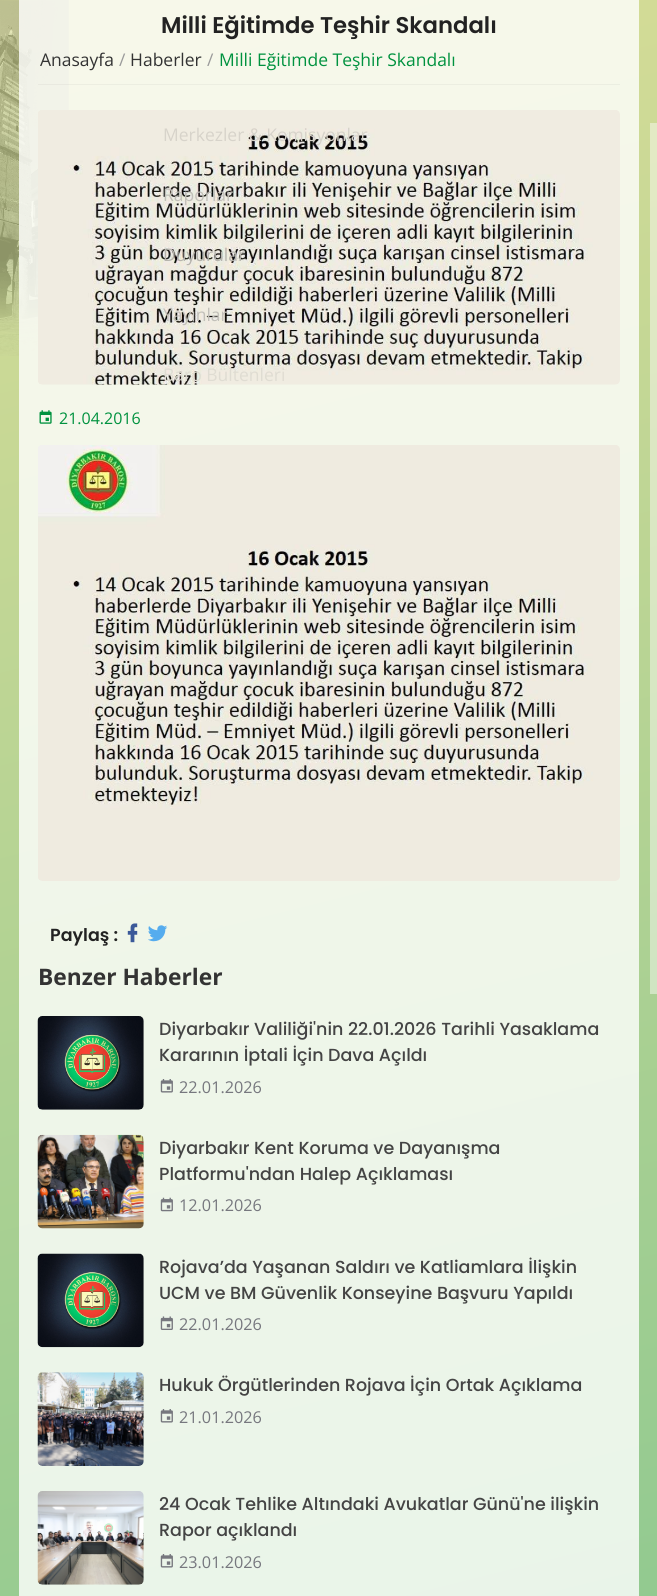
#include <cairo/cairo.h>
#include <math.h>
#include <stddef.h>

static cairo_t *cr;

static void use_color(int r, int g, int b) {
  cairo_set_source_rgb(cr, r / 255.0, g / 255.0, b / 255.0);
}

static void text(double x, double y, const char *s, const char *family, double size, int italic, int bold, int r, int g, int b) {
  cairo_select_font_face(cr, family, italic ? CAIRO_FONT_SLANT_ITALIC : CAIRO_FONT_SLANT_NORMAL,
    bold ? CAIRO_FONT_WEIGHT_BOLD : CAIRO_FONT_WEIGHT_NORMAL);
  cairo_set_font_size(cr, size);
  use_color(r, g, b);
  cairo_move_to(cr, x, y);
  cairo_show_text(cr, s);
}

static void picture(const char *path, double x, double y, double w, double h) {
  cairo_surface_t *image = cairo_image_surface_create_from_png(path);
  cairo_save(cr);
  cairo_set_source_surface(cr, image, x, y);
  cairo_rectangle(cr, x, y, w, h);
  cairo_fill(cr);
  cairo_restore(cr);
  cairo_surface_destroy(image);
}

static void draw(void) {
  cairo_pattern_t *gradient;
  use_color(255, 255, 255);
  cairo_paint(cr);
  gradient = cairo_pattern_create_linear(-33, -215, 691, 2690);
  cairo_pattern_add_color_stop_rgba(gradient, 0, 0.886, 0.875, 0.596, 1);
  cairo_pattern_add_color_stop_rgba(gradient, 1, 0.4, 0.745, 0.549, 1);
  cairo_set_source(cr, gradient);
  cairo_pattern_destroy(gradient);
  cairo_rectangle(cr, 0, 0, 657, 1596);
  cairo_fill(cr);
  gradient = cairo_pattern_create_linear(-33, -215, 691, 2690);
  cairo_pattern_add_color_stop_rgba(gradient, 0, 0.937, 0.929, 0.773, 1);
  cairo_pattern_add_color_stop_rgba(gradient, 1, 0.663, 0.859, 0.749, 1);
  cairo_set_source(cr, gradient);
  cairo_pattern_destroy(gradient);
  cairo_rectangle(cr, 650, 123, 7, 871);
  cairo_fill(cr);
  picture("img_01.png", 0, 0, 69, 356);
  cairo_set_source_rgba(cr, 1, 1, 1, 0.8);
  cairo_rectangle(cr, 19, 0, 620, 1596);
  cairo_fill(cr);
  cairo_set_source_rgba(cr, 0, 0, 0, 0.04);
  cairo_rectangle(cr, 38, 84, 582, 1);
  cairo_fill(cr);
  picture("img_02.png", 38, 110, 582, 275);
  picture("img_03.png", 39, 410, 13, 14);
  picture("img_04.png", 38, 445, 582, 436);
  picture("img_05.png", 127, 923, 11, 20);
  picture("img_06.png", 148, 925, 20, 17);
  picture("img_07.png", 37, 1016, 107, 94);
  picture("img_08.png", 160, 1079, 13, 14);
  picture("img_09.png", 37, 1134, 107, 95);
  picture("img_10.png", 160, 1197, 13, 15);
  picture("img_11.png", 37, 1253, 107, 95);
  picture("img_12.png", 160, 1316, 13, 14);
  picture("img_13.png", 37, 1372, 107, 94);
  picture("img_14.png", 160, 1409, 13, 14);
  picture("img_15.png", 37, 1491, 107, 94);
  picture("img_16.png", 160, 1554, 13, 14);
  text(161, 33, "Milli Eğitimde Teşhir Skandalı", "Poppins SemiBold", 22.75, 0, 0, 34, 34, 34);
  text(40, 66, "Anasayfa", "Open Sans", 17.5, 0, 0, 51, 51, 51);
  text(119, 66, "/", "Open Sans", 17.5, 0, 0, 155, 155, 155);
  text(130, 66, "Haberler", "Open Sans", 17.5, 0, 0, 51, 51, 51);
  text(207, 66, "/", "Open Sans", 17.5, 0, 0, 155, 155, 155);
  text(219, 66, "Milli Eğitimde Teşhir Skandalı", "Open Sans", 17.5, 0, 0, 0, 146, 63);
  text(59, 424, "21.04.2016", "Open Sans", 16, 0, 0, 0, 146, 63);
  text(50, 941, "Paylaş :", "Poppins SemiBold", 17.5, 0, 0, 34, 34, 34);
  text(38, 985, "Benzer Haberler", "Open Sans", 22.75, 0, 1, 51, 51, 51);
  text(159, 1035, "Diyarbakır Valiliği'nin 22.01.2026 Tarihli Yasaklama", "Poppins Medium", 17.5, 0, 0, 68, 68, 68);
  text(159, 1061, "Kararının İptali İçin Dava Açıldı", "Poppins Medium", 17.5, 0, 0, 68, 68, 68);
  text(179, 1093, "22.01.2026", "Open Sans", 16.25, 0, 0, 118, 119, 126);
  text(159, 1154, "Diyarbakır Kent Koruma ve Dayanışma", "Poppins Medium", 17.5, 0, 0, 68, 68, 68);
  text(159, 1180, "Platformu'ndan Halep Açıklaması", "Poppins Medium", 17.5, 0, 0, 68, 68, 68);
  text(179, 1211, "12.01.2026", "Open Sans", 16.25, 0, 0, 118, 119, 126);
  text(159, 1273, "Rojava’da Yaşanan Saldırı ve Katliamlara İlişkin", "Poppins Medium", 17.5, 0, 0, 68, 68, 68);
  text(159, 1299, "UCM ve BM Güvenlik Konseyine Başvuru Yapıldı", "Poppins Medium", 17.5, 0, 0, 68, 68, 68);
  text(179, 1330, "22.01.2026", "Open Sans", 16.25, 0, 0, 118, 119, 126);
  text(159, 1391, "Hukuk Örgütlerinden Rojava İçin Ortak Açıklama", "Poppins Medium", 17.5, 0, 0, 68, 68, 68);
  text(179, 1423, "21.01.2026", "Open Sans", 16.25, 0, 0, 118, 119, 126);
  text(159, 1510, "24 Ocak Tehlike Altındaki Avukatlar Günü'ne ilişkin", "Poppins Medium", 17.5, 0, 0, 68, 68, 68);
  text(159, 1536, "Rapor açıklandı", "Poppins Medium", 17.5, 0, 0, 68, 68, 68);
  text(179, 1568, "23.01.2026", "Open Sans", 16.25, 0, 0, 118, 119, 126);
  text(163, 141, "Merkezler & Komisyonlar", "Open Sans", 17.5, 0, 0, 215, 211, 202);
  text(163, 201, "Raporlar", "Open Sans", 17.5, 0, 0, 194, 192, 185);
  text(163, 261, "Duyurular", "Open Sans", 17.5, 0, 0, 182, 180, 173);
  text(163, 321, "Yayınlar", "Open Sans", 17.5, 0, 0, 194, 192, 185);
  text(163, 381, "Baro Bültenleri", "Open Sans", 17.5, 0, 0, 223, 220, 210);
}

int main(void) {
  cairo_surface_t *surface = cairo_image_surface_create(CAIRO_FORMAT_RGB24, 657, 1596);
  cr = cairo_create(surface);
  cairo_font_options_t *options = cairo_font_options_create();
  cairo_font_options_set_hint_metrics(options, CAIRO_HINT_METRICS_OFF);
  cairo_font_options_set_hint_style(options, CAIRO_HINT_STYLE_NONE);
  cairo_set_font_options(cr, options);
  cairo_set_miter_limit(cr, 4);
  draw();
  cairo_surface_write_to_png(surface, "out.png");
  cairo_font_options_destroy(options);
  cairo_destroy(cr);
  cairo_surface_destroy(surface);
  return 0;
}
